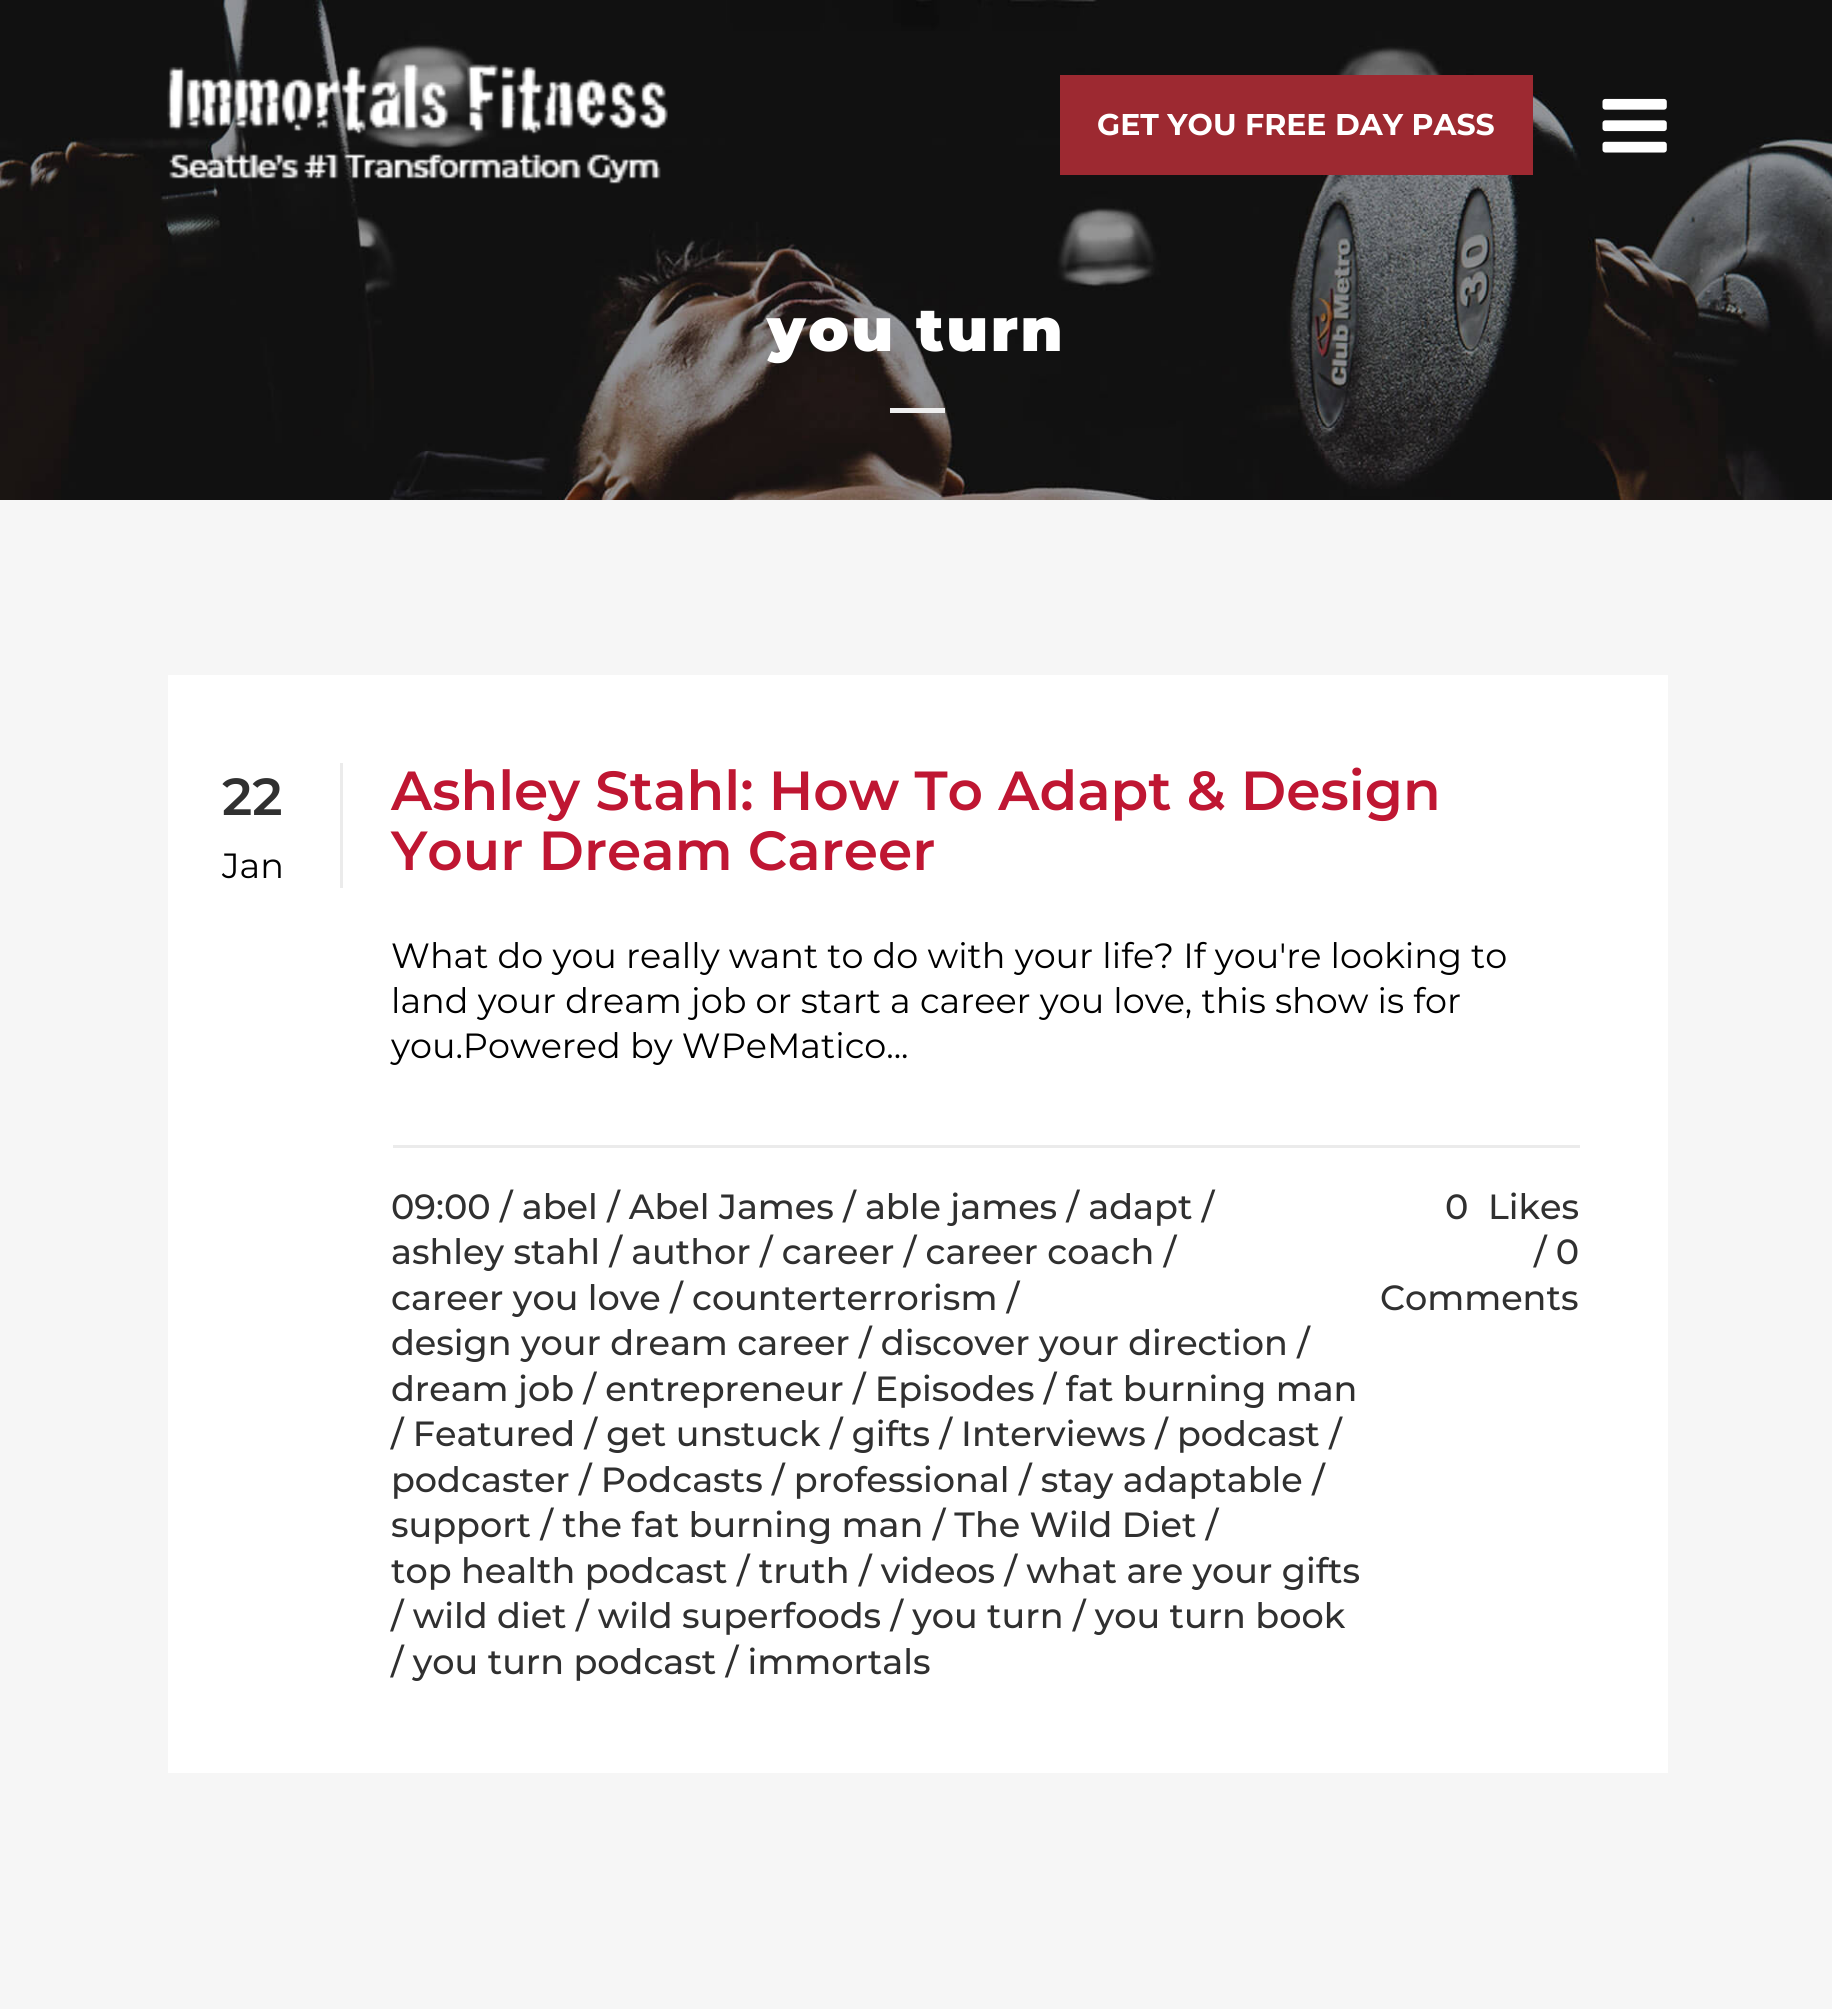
#include <cairo/cairo.h>
#include <math.h>
#include <stddef.h>

static cairo_t *cr;

static void use_color(int r, int g, int b) {
  cairo_set_source_rgb(cr, r / 255.0, g / 255.0, b / 255.0);
}

static void text(double x, double y, const char *s, const char *family, double size, int italic, int bold, int r, int g, int b) {
  cairo_select_font_face(cr, family, italic ? CAIRO_FONT_SLANT_ITALIC : CAIRO_FONT_SLANT_NORMAL,
    bold ? CAIRO_FONT_WEIGHT_BOLD : CAIRO_FONT_WEIGHT_NORMAL);
  cairo_set_font_size(cr, size);
  use_color(r, g, b);
  cairo_move_to(cr, x, y);
  cairo_show_text(cr, s);
}

static void spaced_text(double x, double y, const char *s, double letter, double word) {
  cairo_move_to(cr, x, y);
  while (*s) {
    char ch[5] = {0};
    int n = 0;
    do ch[n++] = *s++; while ((*s & 0xC0) == 0x80);
    cairo_show_text(cr, ch);
    cairo_rel_move_to(cr, letter + word * (*ch == ' '), 0);
  }
}

static void box(double x, double y, double w, double h, int r, int g, int b) {
  use_color(r, g, b);
  cairo_rectangle(cr, x, y, w, h);
  cairo_fill(cr);
}

static void picture(const char *path, double x, double y, double w, double h) {
  cairo_surface_t *image = cairo_image_surface_create_from_png(path);
  cairo_save(cr);
  cairo_set_source_surface(cr, image, x, y);
  cairo_rectangle(cr, x, y, w, h);
  cairo_fill(cr);
  cairo_restore(cr);
  cairo_surface_destroy(image);
}

static void draw(void) {
  use_color(246, 246, 246);
  cairo_paint(cr);
  picture("img_03.png", 0, 0, 1832, 500);
  picture("img_01.png", 167, 64, 501, 120);
  box(1060, 75, 473, 100, 157, 41, 49);
  picture("img_02.png", 1602, 98, 65, 55);
  box(890, 408, 55, 5, 239, 239, 239);
  box(168, 675, 1500, 1098, 255, 255, 255);
  box(340, 763, 3, 125, 235, 235, 235);
  box(393, 1145, 1187, 3, 235, 235, 235);
  text(1097, 135, "GET YOU FREE DAY PASS", "Montserrat", 30, 0, 1, 255, 255, 255);
  cairo_select_font_face(cr, "Montserrat Black", CAIRO_FONT_SLANT_NORMAL, CAIRO_FONT_WEIGHT_NORMAL);
  cairo_set_font_size(cr, 60);
  spaced_text(767, 351, "you turn", 2.5, 0);
  text(222, 815, "22", "Montserrat SemiBold", 52, 0, 0, 48, 48, 48);
  text(222, 878, "Jan", "Montserrat", 35, 0, 0, 0, 0, 0);
  text(391, 810, "Ashley Stahl: How To Adapt & Design", "Montserrat SemiBold", 55, 0, 0, 191, 22, 50);
  text(391, 870, "Your Dream Career", "Montserrat SemiBold", 55, 0, 0, 191, 22, 50);
  text(391, 968, "What do you really want to do with your life? If you're looking to", "Montserrat", 35, 0, 0, 0, 0, 0);
  text(391, 1013, "land your dream job or start a career you love, this show is for", "Montserrat", 35, 0, 0, 0, 0, 0);
  text(391, 1058, "you.Powered by WPeMatico...", "Montserrat", 35, 0, 0, 0, 0, 0);
  text(391, 1219, "09:00 / abel / Abel James / able james / adapt /", "Montserrat Medium", 35, 0, 0, 48, 48, 48);
  text(391, 1264, "ashley stahl / author / career / career coach /", "Montserrat Medium", 35, 0, 0, 48, 48, 48);
  text(391, 1310, "career you love / counterterrorism /", "Montserrat Medium", 35, 0, 0, 48, 48, 48);
  text(391, 1355, "design your dream career / discover your direction /", "Montserrat Medium", 35, 0, 0, 48, 48, 48);
  text(391, 1401, "dream job / entrepreneur / Episodes / fat burning man", "Montserrat Medium", 35, 0, 0, 48, 48, 48);
  text(391, 1446, "/ Featured / get unstuck / gifts / Interviews / podcast /", "Montserrat Medium", 35, 0, 0, 48, 48, 48);
  text(391, 1492, "podcaster / Podcasts / professional / stay adaptable /", "Montserrat Medium", 35, 0, 0, 48, 48, 48);
  text(391, 1537, "support / the fat burning man / The Wild Diet /", "Montserrat Medium", 35, 0, 0, 48, 48, 48);
  text(391, 1583, "top health podcast / truth / videos / what are your gifts", "Montserrat Medium", 35, 0, 0, 48, 48, 48);
  text(391, 1628, "/ wild diet / wild superfoods / you turn / you turn book", "Montserrat Medium", 35, 0, 0, 48, 48, 48);
  text(391, 1674, "/ you turn podcast / immortals", "Montserrat Medium", 35, 0, 0, 48, 48, 48);
  text(1445, 1219, "0", "Montserrat Medium", 35, 0, 0, 48, 48, 48);
  text(1488, 1219, "Likes", "Montserrat Medium", 35, 0, 0, 48, 48, 48);
  text(1534, 1264, "/ 0", "Montserrat Medium", 35, 0, 0, 48, 48, 48);
  text(1380, 1310, "Comments", "Montserrat Medium", 35, 0, 0, 48, 48, 48);
}

int main(void) {
  cairo_surface_t *surface = cairo_image_surface_create(CAIRO_FORMAT_RGB24, 1832, 2009);
  cr = cairo_create(surface);
  cairo_font_options_t *options = cairo_font_options_create();
  cairo_font_options_set_hint_metrics(options, CAIRO_HINT_METRICS_OFF);
  cairo_font_options_set_hint_style(options, CAIRO_HINT_STYLE_NONE);
  cairo_set_font_options(cr, options);
  cairo_set_miter_limit(cr, 4);
  draw();
  cairo_surface_write_to_png(surface, "out.png");
  cairo_font_options_destroy(options);
  cairo_destroy(cr);
  cairo_surface_destroy(surface);
  return 0;
}
